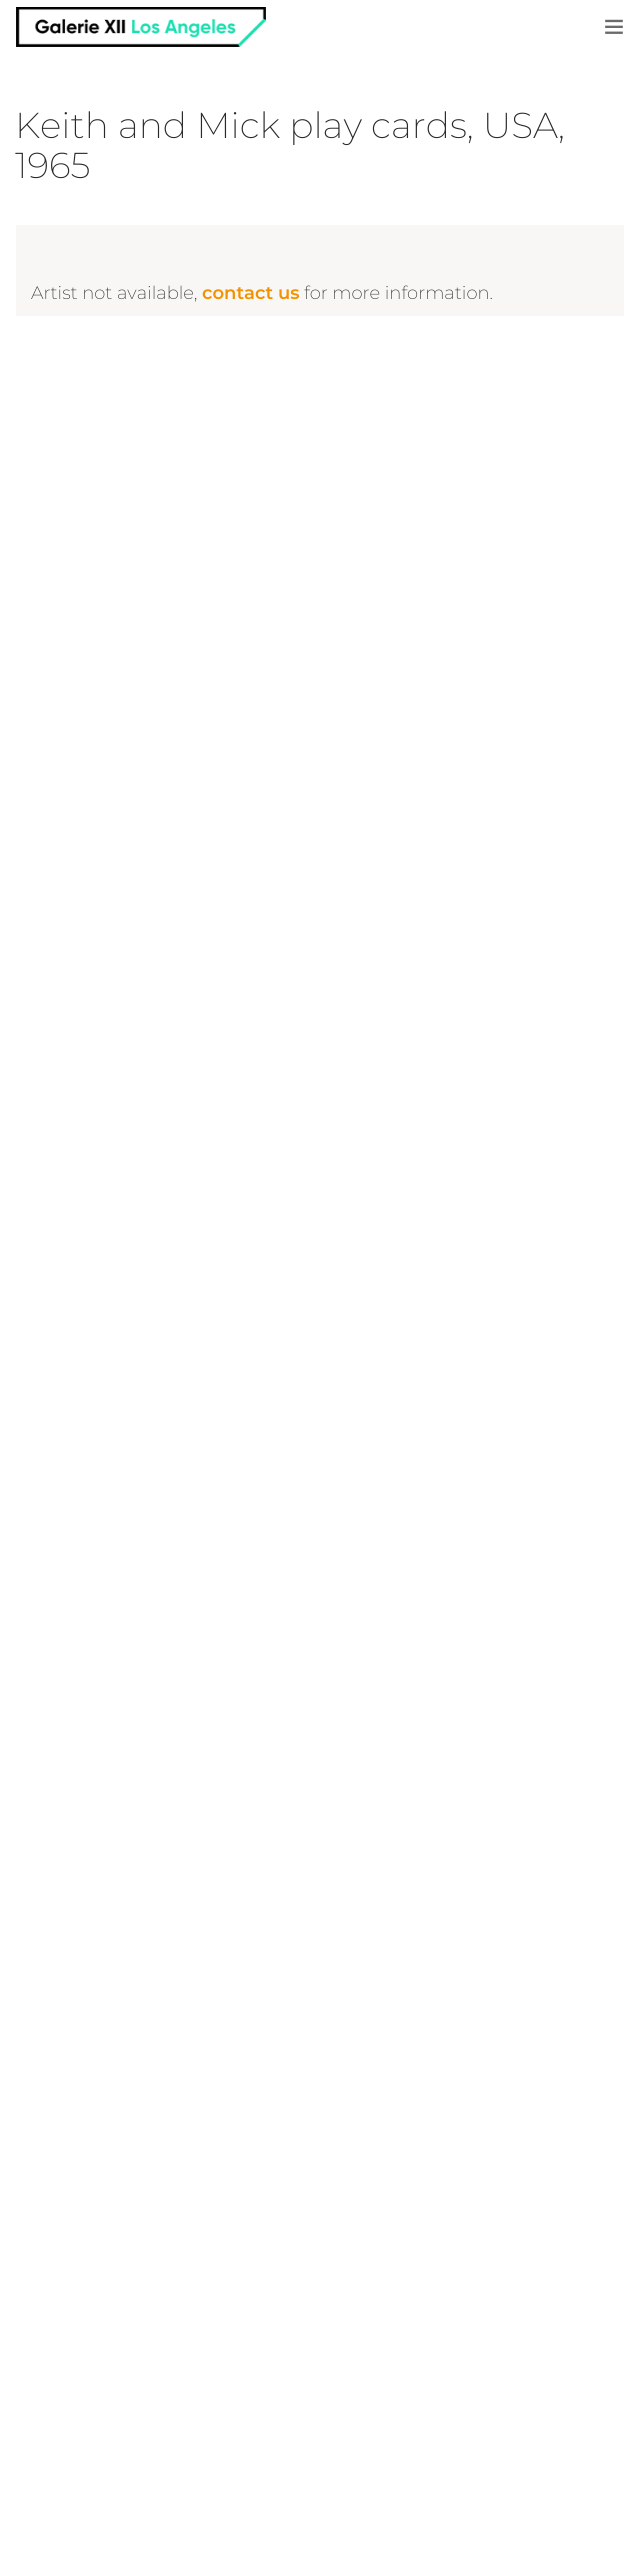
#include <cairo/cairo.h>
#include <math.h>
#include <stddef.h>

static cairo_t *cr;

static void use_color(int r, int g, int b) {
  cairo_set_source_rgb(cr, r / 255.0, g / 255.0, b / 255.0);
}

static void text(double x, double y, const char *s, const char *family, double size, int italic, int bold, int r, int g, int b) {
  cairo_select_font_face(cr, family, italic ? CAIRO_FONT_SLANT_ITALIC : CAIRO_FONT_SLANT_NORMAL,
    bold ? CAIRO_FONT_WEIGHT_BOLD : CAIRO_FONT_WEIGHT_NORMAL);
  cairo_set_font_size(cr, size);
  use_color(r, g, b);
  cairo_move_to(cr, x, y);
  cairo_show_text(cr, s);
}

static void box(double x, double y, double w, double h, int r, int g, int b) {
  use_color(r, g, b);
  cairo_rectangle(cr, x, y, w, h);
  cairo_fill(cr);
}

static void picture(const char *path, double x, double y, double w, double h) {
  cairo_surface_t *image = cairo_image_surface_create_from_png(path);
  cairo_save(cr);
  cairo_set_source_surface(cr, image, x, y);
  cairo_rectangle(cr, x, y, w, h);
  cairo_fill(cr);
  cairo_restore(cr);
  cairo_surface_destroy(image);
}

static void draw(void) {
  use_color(255, 255, 255);
  cairo_paint(cr);
  picture("img_01.png", 16, 7, 250, 40);
  picture("img_02.png", 605, 19, 18, 15);
  box(16, 225, 608, 91, 249, 247, 245);
  text(15, 138, "Keith and Mick play cards, USA,", "Montserrat ExtraLight", 36, 0, 0, 41, 41, 41);
  text(15, 178, "1965", "Montserrat ExtraLight", 36, 0, 0, 41, 41, 41);
  text(31, 299, "Artist not available,", "Montserrat ExtraLight", 18, 0, 0, 41, 41, 41);
  text(202, 299, "contact us", "Montserrat SemiBold", 18, 0, 0, 243, 146, 0);
  text(304, 299, "for more information.", "Montserrat ExtraLight", 18, 0, 0, 41, 41, 41);
}

int main(void) {
  cairo_surface_t *surface = cairo_image_surface_create(CAIRO_FORMAT_RGB24, 640, 2563);
  cr = cairo_create(surface);
  cairo_font_options_t *options = cairo_font_options_create();
  cairo_font_options_set_hint_metrics(options, CAIRO_HINT_METRICS_OFF);
  cairo_font_options_set_hint_style(options, CAIRO_HINT_STYLE_NONE);
  cairo_set_font_options(cr, options);
  cairo_set_miter_limit(cr, 4);
  draw();
  cairo_surface_write_to_png(surface, "out.png");
  cairo_font_options_destroy(options);
  cairo_destroy(cr);
  cairo_surface_destroy(surface);
  return 0;
}
